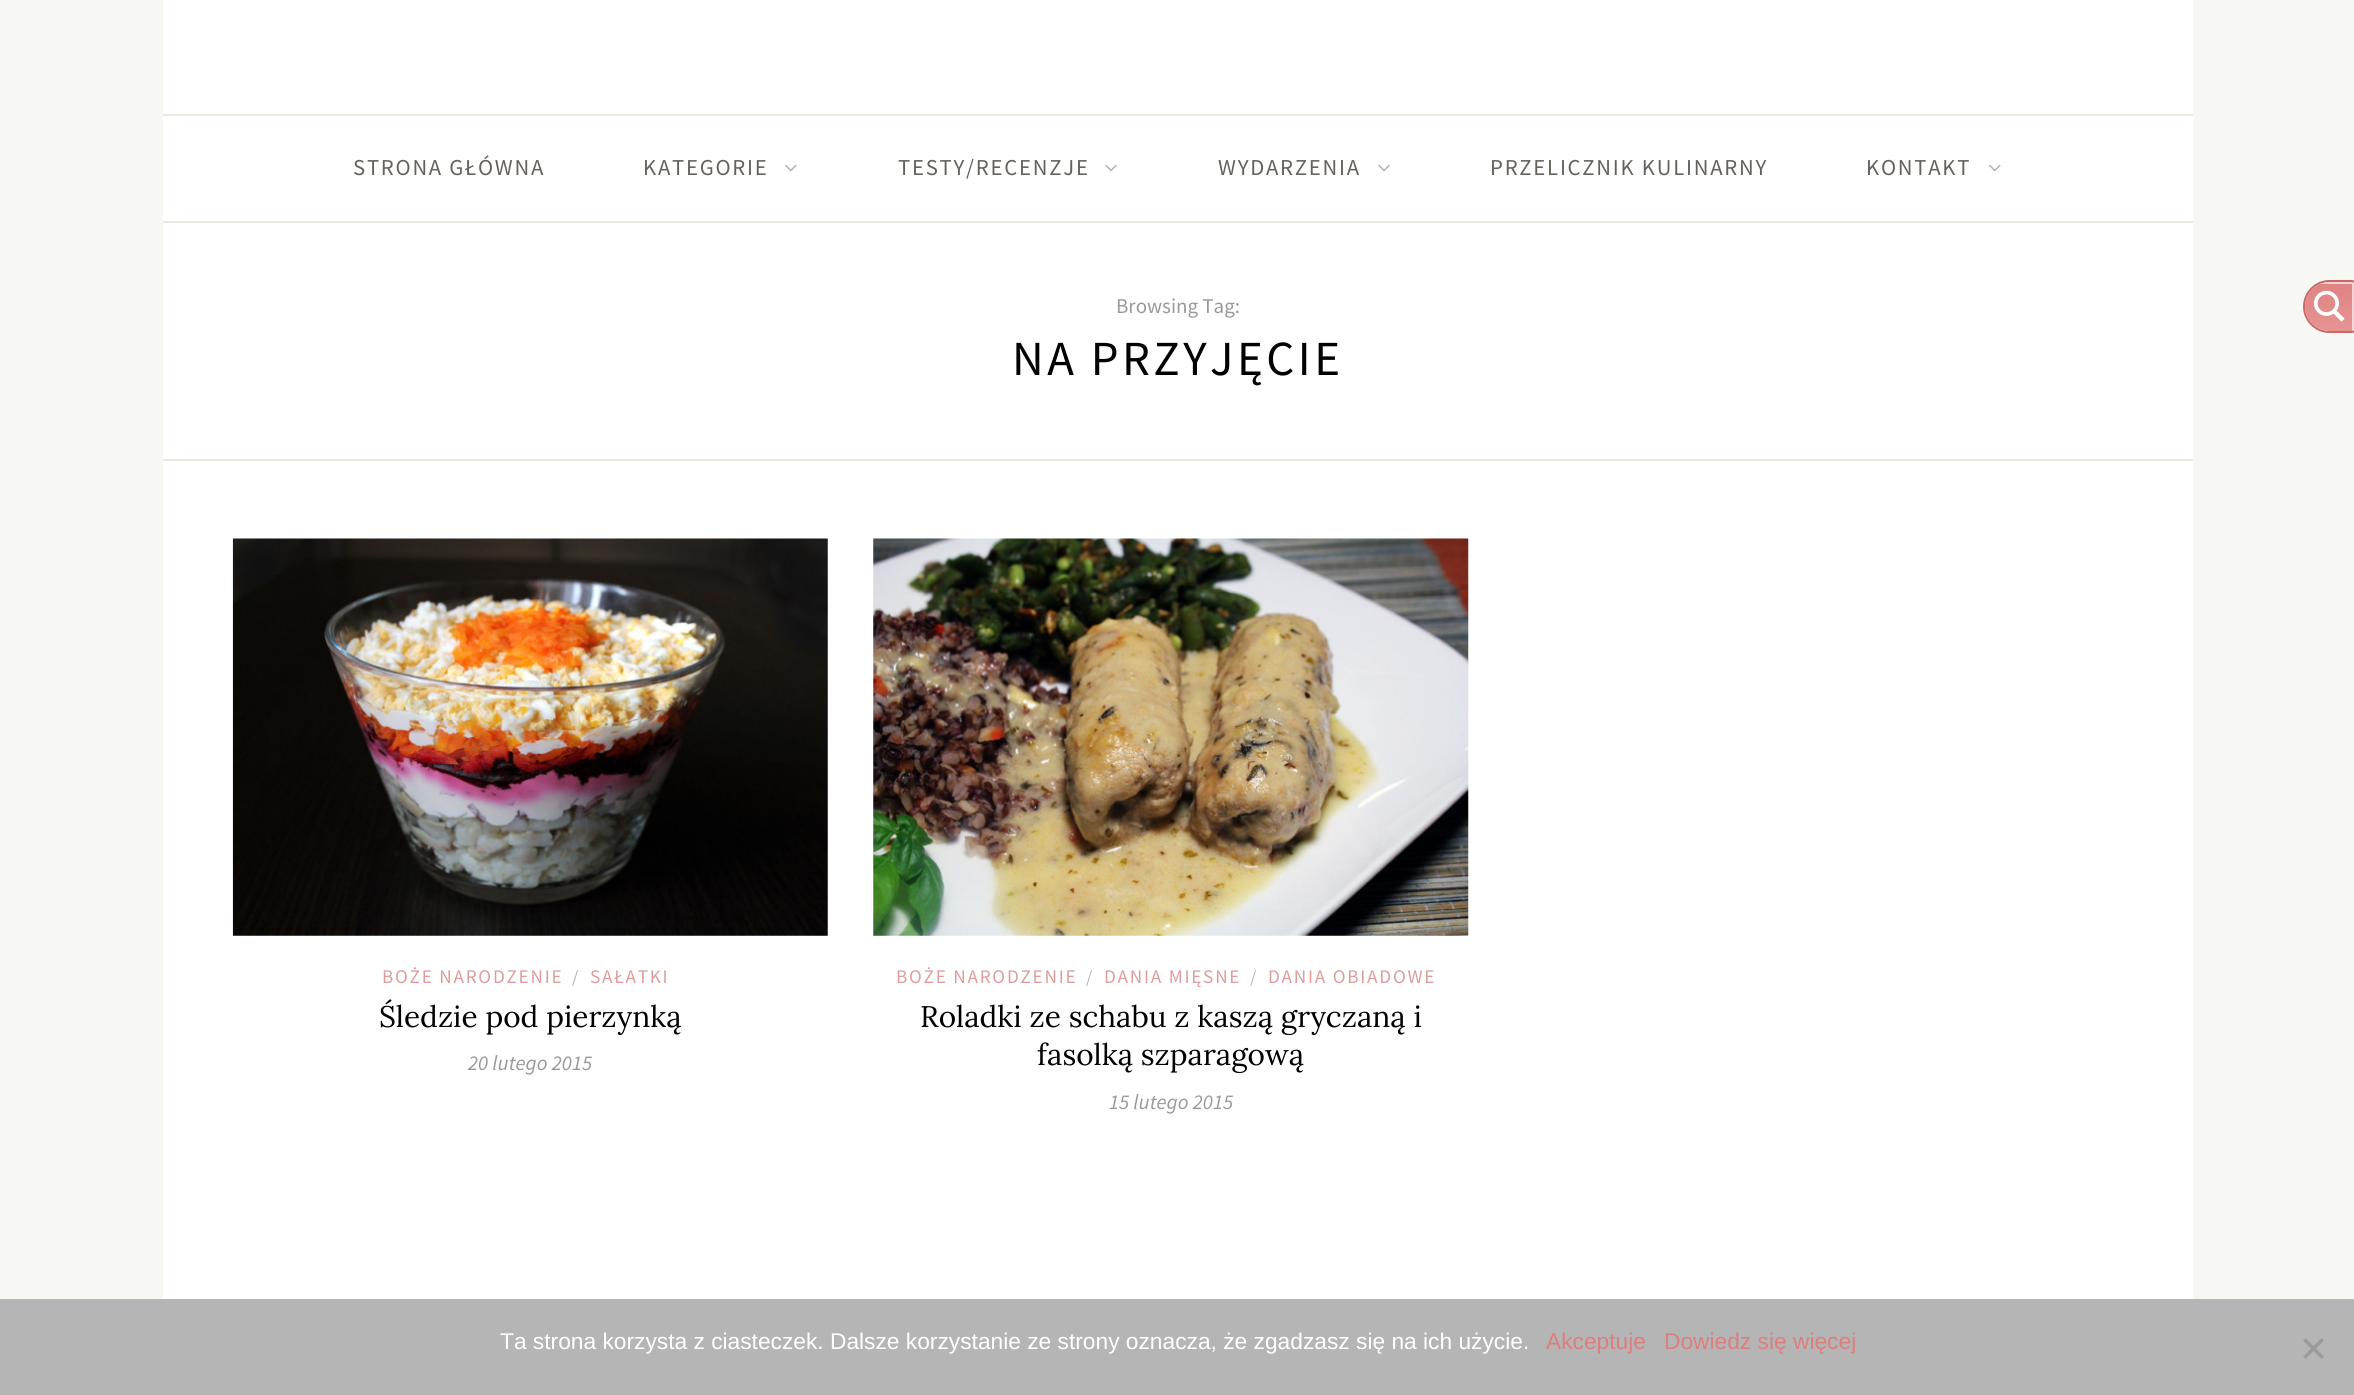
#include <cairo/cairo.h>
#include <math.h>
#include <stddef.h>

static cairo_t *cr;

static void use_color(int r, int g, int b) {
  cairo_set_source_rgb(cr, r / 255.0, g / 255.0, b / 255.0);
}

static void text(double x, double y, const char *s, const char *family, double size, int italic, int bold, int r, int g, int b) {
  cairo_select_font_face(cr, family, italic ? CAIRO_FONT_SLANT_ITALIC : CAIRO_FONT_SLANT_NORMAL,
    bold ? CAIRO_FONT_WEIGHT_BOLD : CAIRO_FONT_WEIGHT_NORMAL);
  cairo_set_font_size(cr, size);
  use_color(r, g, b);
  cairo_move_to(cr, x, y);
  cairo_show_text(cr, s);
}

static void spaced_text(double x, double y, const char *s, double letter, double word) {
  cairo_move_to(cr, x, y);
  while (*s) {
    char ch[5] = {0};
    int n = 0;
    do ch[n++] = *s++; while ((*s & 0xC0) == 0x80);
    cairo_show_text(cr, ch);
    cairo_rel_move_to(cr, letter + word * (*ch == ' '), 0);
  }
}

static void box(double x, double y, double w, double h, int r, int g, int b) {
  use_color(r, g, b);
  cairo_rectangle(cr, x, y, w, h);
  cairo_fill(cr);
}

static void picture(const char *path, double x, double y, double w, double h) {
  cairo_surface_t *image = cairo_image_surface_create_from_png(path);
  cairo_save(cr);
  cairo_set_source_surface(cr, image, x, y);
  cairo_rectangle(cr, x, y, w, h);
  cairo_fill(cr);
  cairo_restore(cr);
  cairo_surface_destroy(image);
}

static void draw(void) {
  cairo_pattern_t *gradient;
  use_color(247, 247, 243);
  cairo_paint(cr);
  box(163, 0, 2030, 1299, 255, 255, 255);
  box(163, 114, 2030, 2, 234, 232, 224);
  box(163, 221, 2030, 2, 234, 232, 224);
  picture("img_01.png", 785, 164, 12, 8);
  picture("img_02.png", 1105, 164, 12, 8);
  picture("img_02.png", 1378, 164, 12, 8);
  picture("img_01.png", 1989, 164, 12, 8);
  box(163, 459, 2030, 2, 234, 232, 224);
  picture("img_03.png", 232, 538, 596, 398);
  picture("img_04.png", 873, 538, 596, 398);
  cairo_new_path(cr);
  cairo_move_to(cr, 2329.5, 281);
  cairo_line_to(cr, 2352, 281);
  cairo_curve_to(cr, 2353.5, 281, 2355, 282.5, 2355, 284);
  cairo_line_to(cr, 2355, 329);
  cairo_curve_to(cr, 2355, 330.5, 2353.5, 332, 2352, 332);
  cairo_line_to(cr, 2329.5, 332);
  cairo_curve_to(cr, 2315.5, 332, 2304, 320.5, 2304, 306.5);
  cairo_curve_to(cr, 2304, 292.5, 2315.5, 281, 2329.5, 281);
  cairo_close_path(cr);
  use_color(199, 104, 104);
  cairo_stroke(cr);
  gradient = cairo_pattern_create_linear(2329, 282, 2329, 331);
  cairo_pattern_add_color_stop_rgba(gradient, 0, 0.871, 0.514, 0.514, 1);
  cairo_pattern_add_color_stop_rgba(gradient, 1, 0.906, 0.576, 0.576, 1);
  cairo_set_source(cr, gradient);
  cairo_pattern_destroy(gradient);
  cairo_new_path(cr);
  cairo_move_to(cr, 2329.5, 282);
  cairo_line_to(cr, 2352, 282);
  cairo_curve_to(cr, 2353, 282, 2354, 283, 2354, 284);
  cairo_line_to(cr, 2354, 329);
  cairo_curve_to(cr, 2354, 330, 2353, 331, 2352, 331);
  cairo_line_to(cr, 2329.5, 331);
  cairo_curve_to(cr, 2316, 331, 2305, 320, 2305, 306.5);
  cairo_curve_to(cr, 2305, 293, 2316, 282, 2329.5, 282);
  cairo_close_path(cr);
  cairo_fill(cr);
  cairo_set_source_rgba(cr, 1, 1, 1, 0.64);
  cairo_new_path(cr);
  cairo_move_to(cr, 2330, 282);
  cairo_curve_to(cr, 2326, 282, 2323, 283, 2320, 284);
  cairo_line_to(cr, 2352, 284);
  cairo_line_to(cr, 2352, 331);
  cairo_curve_to(cr, 2353, 331, 2354, 330, 2354, 329);
  cairo_line_to(cr, 2354, 284);
  cairo_curve_to(cr, 2354, 283, 2353, 282, 2352, 282);
  cairo_close_path(cr);
  cairo_fill(cr);
  picture("img_05.png", 2313, 290, 32, 32);
  box(0, 1299, 2354, 96, 181, 181, 181);
  use_color(155, 155, 155);
  cairo_new_path(cr);
  cairo_move_to(cr, 2321.5, 1338);
  cairo_line_to(cr, 2324, 1340.5);
  cairo_line_to(cr, 2305.5, 1359);
  cairo_line_to(cr, 2303, 1356.5);
  cairo_close_path(cr);
  cairo_fill(cr);
  cairo_new_path(cr);
  cairo_move_to(cr, 2303, 1340.5);
  cairo_line_to(cr, 2305.5, 1338);
  cairo_line_to(cr, 2324, 1356.5);
  cairo_line_to(cr, 2321.5, 1359);
  cairo_close_path(cr);
  cairo_fill(cr);
  cairo_select_font_face(cr, "Source Sans Pro", CAIRO_FONT_SLANT_NORMAL, CAIRO_FONT_WEIGHT_NORMAL);
  cairo_set_font_size(cr, 22.75);
  use_color(101, 98, 93);
  spaced_text(353, 175, "STRONA GŁÓWNA", 1.75, 0);
  spaced_text(643, 175, "KATEGORIE", 1.75, 0);
  spaced_text(898, 175, "TESTY/RECENZJE", 1.75, 0);
  spaced_text(1218, 175, "WYDARZENIA", 1.75, 0);
  spaced_text(1490, 175, "PRZELICZNIK KULINARNY", 1.75, 0);
  spaced_text(1866, 175, "KONTAKT", 1.75, 0);
  text(1116, 313, "Browsing Tag:", "Source Sans Pro", 21, 0, 0, 153, 153, 153);
  cairo_set_font_size(cr, 49);
  use_color(0, 0, 0);
  spaced_text(1012, 375, "NA PRZYJĘCIE", 3.5, 0);
  cairo_set_font_size(cr, 19.25);
  use_color(221, 157, 157);
  spaced_text(382, 983, "BOŻE NARODZENIE", 1.75, 0);
  text(572, 983, "/", "Source Sans Pro", 18, 0, 0, 181, 181, 181);
  cairo_set_font_size(cr, 19.25);
  use_color(221, 157, 157);
  spaced_text(590, 983, "SAŁATKI", 1.75, 0);
  text(379, 1027, "Śledzie pod pierzynką", "Lora", 29.75, 0, 0, 0, 0, 0);
  text(468, 1070, "20 lutego 2015", "Source Sans Pro", 21, 1, 0, 153, 153, 153);
  cairo_select_font_face(cr, "Source Sans Pro", CAIRO_FONT_SLANT_NORMAL, CAIRO_FONT_WEIGHT_NORMAL);
  cairo_set_font_size(cr, 19.25);
  use_color(221, 157, 157);
  spaced_text(896, 983, "BOŻE NARODZENIE", 1.75, 0);
  text(1086, 983, "/", "Source Sans Pro", 18, 0, 0, 181, 181, 181);
  cairo_set_font_size(cr, 19.25);
  use_color(221, 157, 157);
  spaced_text(1104, 983, "DANIA MIĘSNE", 1.75, 0);
  text(1250, 983, "/", "Source Sans Pro", 18, 0, 0, 181, 181, 181);
  cairo_set_font_size(cr, 19.25);
  use_color(221, 157, 157);
  spaced_text(1268, 983, "DANIA OBIADOWE", 1.75, 0);
  text(920, 1027, "Roladki ze schabu z kaszą gryczaną i", "Lora", 29.75, 0, 0, 0, 0, 0);
  text(1037, 1065, "fasolką szparagową", "Lora", 29.75, 0, 0, 0, 0, 0);
  text(1109, 1109, "15 lutego 2015", "Source Sans Pro", 21, 1, 0, 153, 153, 153);
  text(500, 1349, "Ta strona korzysta z ciasteczek. Dalsze korzystanie ze strony oznacza, że zgadzasz się na ich użycie.", "Liberation Sans", 22.75, 0, 0, 255, 255, 255);
  text(1546, 1349, "Akceptuje", "Liberation Sans", 22.75, 0, 0, 221, 126, 126);
  text(1664, 1349, "Dowiedz się więcej", "Liberation Sans", 22.75, 0, 0, 221, 126, 126);
}

int main(void) {
  cairo_surface_t *surface = cairo_image_surface_create(CAIRO_FORMAT_RGB24, 2354, 1395);
  cr = cairo_create(surface);
  cairo_font_options_t *options = cairo_font_options_create();
  cairo_font_options_set_hint_metrics(options, CAIRO_HINT_METRICS_OFF);
  cairo_font_options_set_hint_style(options, CAIRO_HINT_STYLE_NONE);
  cairo_set_font_options(cr, options);
  cairo_set_miter_limit(cr, 4);
  draw();
  cairo_surface_write_to_png(surface, "out.png");
  cairo_font_options_destroy(options);
  cairo_destroy(cr);
  cairo_surface_destroy(surface);
  return 0;
}
